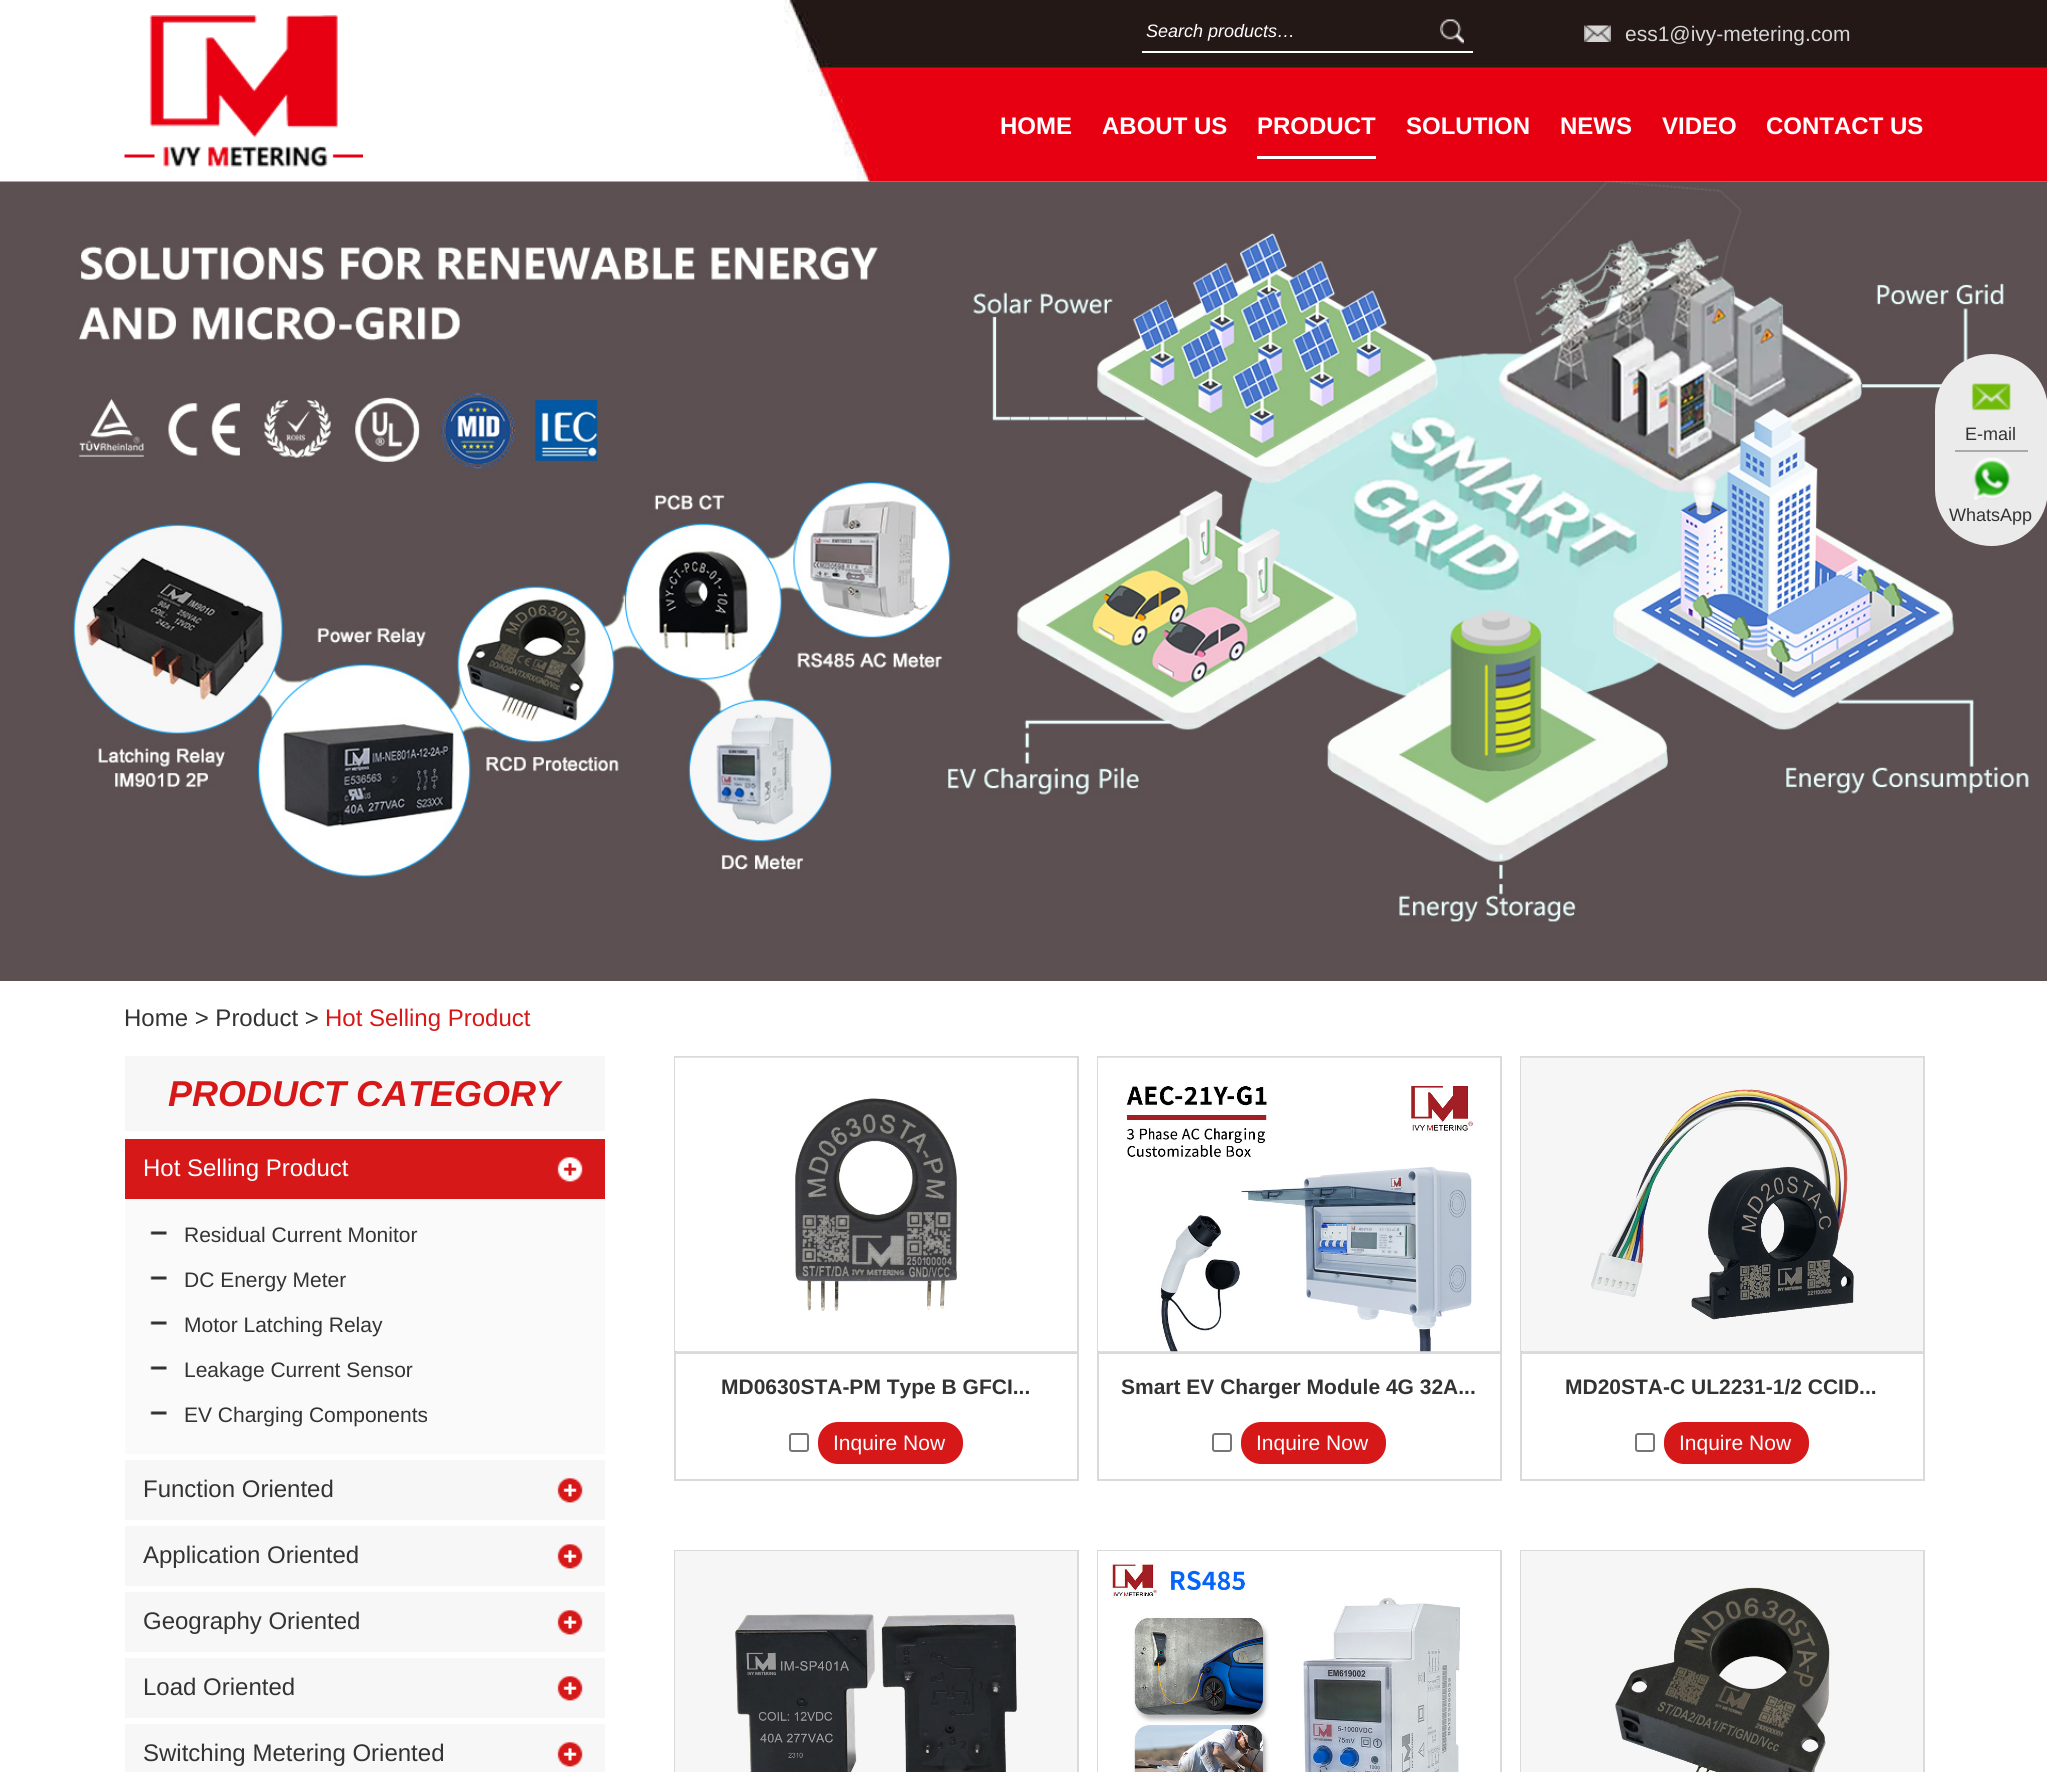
#include <cairo/cairo.h>
#include <math.h>
#include <stddef.h>

static cairo_t *cr;

static void use_color(int r, int g, int b) {
  cairo_set_source_rgb(cr, r / 255.0, g / 255.0, b / 255.0);
}

static void text(double x, double y, const char *s, const char *family, double size, int italic, int bold, int r, int g, int b) {
  cairo_select_font_face(cr, family, italic ? CAIRO_FONT_SLANT_ITALIC : CAIRO_FONT_SLANT_NORMAL,
    bold ? CAIRO_FONT_WEIGHT_BOLD : CAIRO_FONT_WEIGHT_NORMAL);
  cairo_set_font_size(cr, size);
  use_color(r, g, b);
  cairo_move_to(cr, x, y);
  cairo_show_text(cr, s);
}

static void box(double x, double y, double w, double h, int r, int g, int b) {
  use_color(r, g, b);
  cairo_rectangle(cr, x, y, w, h);
  cairo_fill(cr);
}

static void round_rect(double x, double y, double w, double h, double r) {
  cairo_new_sub_path(cr);
  cairo_arc(cr, x + w - r, y + h - r, r, 0, M_PI / 2);
  cairo_arc(cr, x + r, y + h - r, r, M_PI / 2, M_PI);
  cairo_arc(cr, x + r, y + r, r, M_PI, 1.5 * M_PI);
  cairo_arc(cr, x + w - r, y + r, r, 1.5 * M_PI, 2 * M_PI);
  cairo_close_path(cr);
}

static void picture(const char *path, double x, double y, double w, double h) {
  cairo_surface_t *image = cairo_image_surface_create_from_png(path);
  cairo_save(cr);
  cairo_set_source_surface(cr, image, x, y);
  cairo_rectangle(cr, x, y, w, h);
  cairo_fill(cr);
  cairo_restore(cr);
  cairo_surface_destroy(image);
}

static void draw(void) {
  use_color(255, 255, 255);
  cairo_paint(cr);
  picture("img_01.png", 783, 0, 1264, 182);
  picture("img_02.png", 124, 15, 239, 152);
  box(1142, 51, 331, 2, 255, 255, 255);
  picture("img_03.png", 1440, 19, 24, 25);
  picture("img_04.png", 1584, 25, 27, 17);
  box(1257, 156, 119, 3, 255, 255, 255);
  picture("img_05.png", 0, 181, 2047, 800);
  use_color(235, 235, 235);
  round_rect(1935, 354, 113, 192, 56.5);
  cairo_fill(cr);
  picture("img_06.png", 1971, 383, 40, 28);
  box(1955, 450, 73, 2, 170, 170, 170);
  picture("img_07.png", 1972, 457, 40, 43);
  box(125, 1056, 480, 75, 247, 247, 247);
  box(125, 1139, 480, 60, 214, 24, 25);
  picture("img_08.png", 557, 1157, 26, 25);
  box(125, 1199, 480, 255, 250, 250, 250);
  picture("img_09.png", 150, 1231, 17, 4);
  picture("img_09.png", 150, 1276, 17, 4);
  picture("img_09.png", 150, 1321, 17, 4);
  picture("img_09.png", 150, 1366, 17, 4);
  picture("img_09.png", 150, 1411, 17, 4);
  box(125, 1460, 480, 60, 247, 247, 247);
  picture("img_10.png", 557, 1478, 26, 25);
  box(125, 1526, 480, 60, 247, 247, 247);
  picture("img_10.png", 557, 1544, 26, 25);
  box(125, 1592, 480, 60, 247, 247, 247);
  picture("img_10.png", 557, 1610, 26, 25);
  box(125, 1658, 480, 60, 247, 247, 247);
  picture("img_10.png", 557, 1676, 26, 25);
  box(125, 1724, 480, 48, 247, 247, 247);
  picture("img_10.png", 557, 1742, 26, 25);
  cairo_rectangle(cr, 675, 1057, 403, 423);
  use_color(218, 218, 218);
  cairo_stroke(cr);
  picture("img_11.png", 675, 1057, 402, 295);
  cairo_set_source_rgba(cr, 0.843, 0.09, 0.09, 0.18);
  cairo_rectangle(cr, 675, 1351, 402, 1);
  cairo_fill(cr);
  box(675, 1352, 402, 2, 218, 218, 218);
  round_rect(790, 1434, 18, 17, 2);
  use_color(118, 118, 118);
  cairo_stroke(cr);
  use_color(214, 24, 25);
  round_rect(819, 1423, 143, 40, 19);
  cairo_fill_preserve(cr);
  cairo_stroke(cr);
  cairo_rectangle(cr, 1098, 1057, 403, 423);
  use_color(218, 218, 218);
  cairo_stroke(cr);
  picture("img_12.png", 1098, 1057, 402, 295);
  cairo_set_source_rgba(cr, 0.843, 0.09, 0.09, 0.18);
  cairo_rectangle(cr, 1098, 1351, 402, 1);
  cairo_fill(cr);
  box(1098, 1352, 402, 2, 218, 218, 218);
  round_rect(1213, 1434, 18, 17, 2);
  use_color(118, 118, 118);
  cairo_stroke(cr);
  use_color(214, 24, 25);
  round_rect(1242, 1423, 143, 40, 19);
  cairo_fill_preserve(cr);
  cairo_stroke(cr);
  cairo_rectangle(cr, 1521, 1057, 403, 423);
  use_color(218, 218, 218);
  cairo_stroke(cr);
  picture("img_13.png", 1521, 1057, 402, 295);
  cairo_set_source_rgba(cr, 0.843, 0.09, 0.09, 0.18);
  cairo_rectangle(cr, 1521, 1351, 402, 1);
  cairo_fill(cr);
  box(1521, 1352, 402, 2, 218, 218, 218);
  round_rect(1636, 1434, 18, 17, 2);
  use_color(118, 118, 118);
  cairo_stroke(cr);
  use_color(214, 24, 25);
  round_rect(1665, 1423, 143, 40, 19);
  cairo_fill_preserve(cr);
  cairo_stroke(cr);
  cairo_rectangle(cr, 675, 1551, 403, 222);
  use_color(218, 218, 218);
  cairo_stroke(cr);
  picture("img_14.png", 675, 1551, 402, 221);
  cairo_rectangle(cr, 1098, 1551, 403, 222);
  cairo_stroke(cr);
  picture("img_15.png", 1098, 1551, 402, 221);
  cairo_rectangle(cr, 1521, 1551, 403, 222);
  cairo_stroke(cr);
  picture("img_16.png", 1521, 1551, 402, 221);
  text(1146, 37, "Search products…", "Liberation Sans", 18, 1, 0, 255, 255, 255);
  text(1625, 41, "ess1@ivy-metering.com", "Liberation Sans", 21, 0, 0, 215, 215, 215);
  text(1000, 134, "HOME", "Liberation Sans", 24, 0, 1, 255, 255, 255);
  text(1102, 134, "ABOUT US", "Liberation Sans", 24, 0, 1, 255, 255, 255);
  text(1257, 134, "PRODUCT", "Liberation Sans", 24, 0, 1, 255, 255, 255);
  text(1406, 134, "SOLUTION", "Liberation Sans", 24, 0, 1, 255, 255, 255);
  text(1560, 134, "NEWS", "Liberation Sans", 24, 0, 1, 255, 255, 255);
  text(1662, 134, "VIDEO", "Liberation Sans", 24, 0, 1, 255, 255, 255);
  text(1766, 134, "CONTACT US", "Liberation Sans", 24, 0, 1, 255, 255, 255);
  text(1965, 440, "E-mail", "Liberation Sans", 18, 0, 0, 51, 51, 51);
  text(1949, 521, "WhatsApp", "Liberation Sans", 18, 0, 0, 51, 51, 51);
  text(124, 1026, "Home > Product >", "Liberation Sans", 24, 0, 0, 51, 51, 51);
  text(325, 1026, "Hot Selling Product", "Liberation Sans", 24, 0, 0, 214, 24, 25);
  text(168, 1106, "PRODUCT CATEGORY", "Liberation Sans", 36, 1, 1, 214, 24, 25);
  text(143, 1176, "Hot Selling Product", "Liberation Sans", 24, 0, 0, 255, 255, 255);
  text(184, 1242, "Residual Current Monitor", "Liberation Sans", 21, 0, 0, 51, 51, 51);
  text(184, 1287, "DC Energy Meter", "Liberation Sans", 21, 0, 0, 51, 51, 51);
  text(184, 1332, "Motor Latching Relay", "Liberation Sans", 21, 0, 0, 51, 51, 51);
  text(184, 1377, "Leakage Current Sensor", "Liberation Sans", 21, 0, 0, 51, 51, 51);
  text(184, 1422, "EV Charging Components", "Liberation Sans", 21, 0, 0, 51, 51, 51);
  text(143, 1497, "Function Oriented", "Liberation Sans", 24, 0, 0, 51, 51, 51);
  text(143, 1563, "Application Oriented", "Liberation Sans", 24, 0, 0, 51, 51, 51);
  text(143, 1629, "Geography Oriented", "Liberation Sans", 24, 0, 0, 51, 51, 51);
  text(143, 1695, "Load Oriented", "Liberation Sans", 24, 0, 0, 51, 51, 51);
  text(143, 1761, "Switching Metering Oriented", "Liberation Sans", 24, 0, 0, 51, 51, 51);
  text(721, 1394, "MD0630STA-PM Type B GFCI...", "Liberation Sans", 21, 0, 1, 51, 51, 51);
  text(833, 1450, "Inquire Now", "Liberation Sans", 21, 0, 0, 255, 255, 255);
  text(1121, 1394, "Smart EV Charger Module 4G 32A...", "Liberation Sans", 21, 0, 1, 51, 51, 51);
  text(1256, 1450, "Inquire Now", "Liberation Sans", 21, 0, 0, 255, 255, 255);
  text(1565, 1394, "MD20STA-C UL2231-1/2 CCID...", "Liberation Sans", 21, 0, 1, 51, 51, 51);
  text(1679, 1450, "Inquire Now", "Liberation Sans", 21, 0, 0, 255, 255, 255);
}

int main(void) {
  cairo_surface_t *surface = cairo_image_surface_create(CAIRO_FORMAT_RGB24, 2047, 1772);
  cr = cairo_create(surface);
  cairo_font_options_t *options = cairo_font_options_create();
  cairo_font_options_set_hint_metrics(options, CAIRO_HINT_METRICS_OFF);
  cairo_font_options_set_hint_style(options, CAIRO_HINT_STYLE_NONE);
  cairo_set_font_options(cr, options);
  cairo_set_miter_limit(cr, 4);
  draw();
  cairo_surface_write_to_png(surface, "out.png");
  cairo_font_options_destroy(options);
  cairo_destroy(cr);
  cairo_surface_destroy(surface);
  return 0;
}
